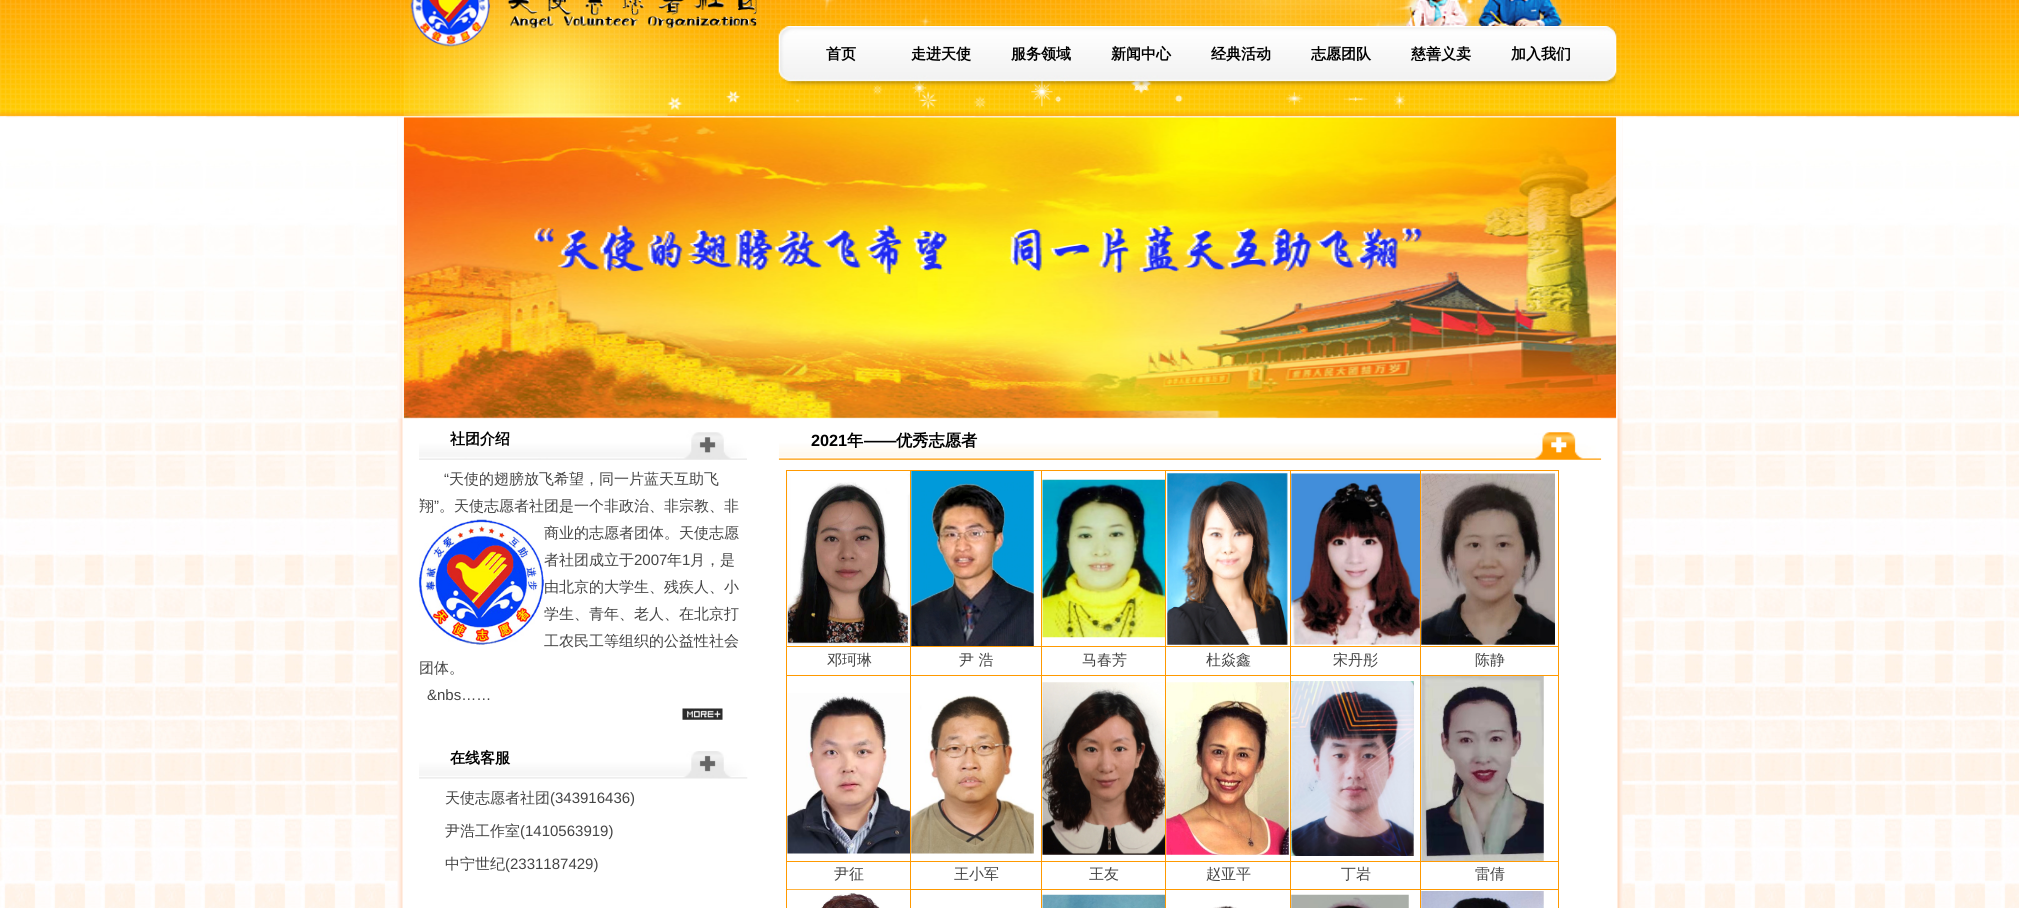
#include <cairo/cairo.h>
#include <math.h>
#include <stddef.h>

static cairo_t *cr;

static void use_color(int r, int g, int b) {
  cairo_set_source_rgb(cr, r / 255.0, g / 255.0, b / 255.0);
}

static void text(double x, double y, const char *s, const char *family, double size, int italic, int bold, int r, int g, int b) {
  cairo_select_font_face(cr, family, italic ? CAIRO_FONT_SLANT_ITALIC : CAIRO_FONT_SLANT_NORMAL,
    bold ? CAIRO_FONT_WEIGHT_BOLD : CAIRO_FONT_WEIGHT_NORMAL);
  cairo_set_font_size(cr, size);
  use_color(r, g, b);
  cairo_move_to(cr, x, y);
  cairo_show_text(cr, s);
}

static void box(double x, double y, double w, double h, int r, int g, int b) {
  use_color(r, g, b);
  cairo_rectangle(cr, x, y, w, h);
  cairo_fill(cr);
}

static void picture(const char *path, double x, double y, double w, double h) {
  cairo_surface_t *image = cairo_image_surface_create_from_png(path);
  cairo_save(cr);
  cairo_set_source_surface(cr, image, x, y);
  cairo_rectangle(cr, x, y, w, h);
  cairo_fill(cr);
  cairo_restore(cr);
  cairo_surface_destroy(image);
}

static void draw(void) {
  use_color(255, 255, 255);
  cairo_paint(cr);
  picture("img_01.png", 0, 117, 2019, 791);
  picture("img_02.png", 0, 0, 2019, 118);
  picture("img_03.png", 403, 0, 1213, 118);
  picture("img_04.png", 410, 0, 347, 47);
  picture("img_05.png", 778, 26, 839, 64);
  picture("img_06.png", 397, 117, 1226, 791);
  picture("img_07.png", 398, 117, 1225, 302);
  picture("img_08.png", 403, 117, 1214, 302);
  picture("img_09.png", 419, 418, 328, 42);
  picture("img_10.png", 418, 519, 126, 126);
  picture("img_11.png", 682, 708, 41, 12);
  picture("img_12.png", 419, 751, 329, 28);
  picture("img_13.png", 778, 418, 824, 42);
  box(786, 470, 773, 1, 255, 153, 0);
  box(1558, 470, 1, 438, 255, 153, 0);
  box(786, 470, 1, 438, 255, 153, 0);
  picture("img_14.png", 787, 474, 123, 171);
  box(1420, 646, 139, 1, 255, 153, 0);
  box(1420, 675, 139, 1, 255, 153, 0);
  box(1420, 861, 139, 1, 255, 153, 0);
  box(1420, 889, 139, 1, 255, 153, 0);
  box(1420, 889, 1, 19, 255, 153, 0);
  box(1290, 889, 131, 1, 255, 153, 0);
  box(1420, 861, 1, 29, 255, 153, 0);
  box(1290, 861, 131, 1, 255, 153, 0);
  box(1420, 675, 1, 188, 255, 153, 0);
  box(1290, 675, 131, 1, 255, 153, 0);
  box(1420, 646, 1, 30, 255, 153, 0);
  box(1290, 646, 131, 1, 255, 153, 0);
  box(1290, 889, 1, 19, 255, 153, 0);
  box(1165, 889, 126, 1, 255, 153, 0);
  box(1290, 861, 1, 29, 255, 153, 0);
  box(1165, 861, 126, 1, 255, 153, 0);
  box(1290, 675, 1, 188, 255, 153, 0);
  box(1165, 675, 126, 1, 255, 153, 0);
  box(1290, 646, 1, 30, 255, 153, 0);
  box(1165, 646, 126, 1, 255, 153, 0);
  box(1165, 889, 1, 19, 255, 153, 0);
  box(1041, 889, 125, 1, 255, 153, 0);
  box(1165, 861, 1, 29, 255, 153, 0);
  box(1041, 861, 125, 1, 255, 153, 0);
  box(1165, 675, 1, 188, 255, 153, 0);
  box(1041, 675, 125, 1, 255, 153, 0);
  box(1165, 646, 1, 30, 255, 153, 0);
  box(1041, 646, 125, 1, 255, 153, 0);
  box(1041, 889, 1, 19, 255, 153, 0);
  box(910, 889, 133, 1, 255, 153, 0);
  box(1041, 861, 1, 29, 255, 153, 0);
  box(910, 861, 133, 1, 255, 153, 0);
  box(1041, 675, 1, 188, 255, 153, 0);
  box(910, 675, 133, 1, 255, 153, 0);
  box(1041, 646, 1, 30, 255, 153, 0);
  box(910, 646, 133, 1, 255, 153, 0);
  box(910, 889, 1, 19, 255, 153, 0);
  box(786, 889, 125, 1, 255, 153, 0);
  box(910, 861, 1, 29, 255, 153, 0);
  box(786, 861, 125, 1, 255, 153, 0);
  box(910, 675, 1, 188, 255, 153, 0);
  box(786, 675, 125, 1, 255, 153, 0);
  box(910, 646, 1, 30, 255, 153, 0);
  box(786, 646, 125, 1, 255, 153, 0);
  box(910, 470, 1, 178, 255, 153, 0);
  picture("img_15.png", 911, 471, 123, 175);
  box(1041, 470, 1, 178, 255, 153, 0);
  picture("img_16.png", 1042, 479, 123, 159);
  box(1165, 470, 1, 178, 255, 153, 0);
  picture("img_17.png", 1167, 473, 121, 172);
  box(1290, 470, 1, 178, 255, 153, 0);
  picture("img_18.png", 1291, 473, 129, 172);
  box(1420, 470, 1, 178, 255, 153, 0);
  picture("img_19.png", 1421, 473, 134, 172);
  picture("img_20.png", 787, 693, 123, 161);
  picture("img_21.png", 911, 695, 123, 159);
  picture("img_22.png", 1042, 682, 123, 173);
  picture("img_23.png", 1166, 682, 123, 173);
  picture("img_24.png", 1291, 681, 123, 175);
  picture("img_25.png", 1421, 676, 123, 185);
  picture("img_26.png", 787, 889, 123, 19);
  picture("img_27.png", 1042, 894, 123, 14);
  picture("img_28.png", 1213, 905, 24, 3);
  picture("img_29.png", 1291, 894, 118, 14);
  picture("img_30.png", 1421, 891, 123, 17);
  text(826, 59, "首页", "WenQuanYi Zen Hei", 15, 0, 1, 0, 0, 0);
  text(911, 59, "走进天使", "WenQuanYi Zen Hei", 15, 0, 1, 0, 0, 0);
  text(1011, 59, "服务领域", "WenQuanYi Zen Hei", 15, 0, 1, 0, 0, 0);
  text(1111, 59, "新闻中心", "WenQuanYi Zen Hei", 15, 0, 1, 0, 0, 0);
  text(1211, 59, "经典活动", "WenQuanYi Zen Hei", 15, 0, 1, 0, 0, 0);
  text(1311, 59, "志愿团队", "WenQuanYi Zen Hei", 15, 0, 1, 0, 0, 0);
  text(1411, 59, "慈善义卖", "WenQuanYi Zen Hei", 15, 0, 1, 0, 0, 0);
  text(1511, 59, "加入我们", "WenQuanYi Zen Hei", 15, 0, 1, 0, 0, 0);
  text(450, 444, "社团介绍", "WenQuanYi Zen Hei", 15, 0, 1, 0, 0, 0);
  text(444, 484, "“", "Liberation Sans", 15, 0, 0, 68, 68, 68);
  text(449, 484, "天使的翅膀放飞希望，同一片蓝天互助飞", "WenQuanYi Zen Hei Medium", 15, 0, 0, 68, 68, 68);
  text(419, 511, "翔", "WenQuanYi Zen Hei Medium", 15, 0, 0, 68, 68, 68);
  text(434, 511, "”", "Liberation Sans", 15, 0, 0, 68, 68, 68);
  text(439, 511, "。天使志愿者社团是一个非政治、非宗教、非", "WenQuanYi Zen Hei Medium", 15, 0, 0, 68, 68, 68);
  text(544, 538, "商业的志愿者团体。天使志愿", "WenQuanYi Zen Hei Medium", 15, 0, 0, 68, 68, 68);
  text(544, 565, "者社团成立于", "WenQuanYi Zen Hei Medium", 15, 0, 0, 68, 68, 68);
  text(634, 565, "2007", "Liberation Sans", 15, 0, 0, 68, 68, 68);
  text(667, 565, "年", "WenQuanYi Zen Hei Medium", 15, 0, 0, 68, 68, 68);
  text(682, 565, "1", "Liberation Sans", 15, 0, 0, 68, 68, 68);
  text(690, 565, "月，是", "WenQuanYi Zen Hei Medium", 15, 0, 0, 68, 68, 68);
  text(544, 592, "由北京的大学生、残疾人、小", "WenQuanYi Zen Hei Medium", 15, 0, 0, 68, 68, 68);
  text(544, 619, "学生、青年、老人、在北京打", "WenQuanYi Zen Hei Medium", 15, 0, 0, 68, 68, 68);
  text(544, 646, "工农民工等组织的公益性社会", "WenQuanYi Zen Hei Medium", 15, 0, 0, 68, 68, 68);
  text(419, 673, "团体。", "WenQuanYi Zen Hei Medium", 15, 0, 0, 68, 68, 68);
  text(427, 700, "&nbs……", "Liberation Sans", 15, 0, 0, 68, 68, 68);
  text(450, 763, "在线客服", "WenQuanYi Zen Hei", 15, 0, 1, 0, 0, 0);
  text(445, 803, "天使志愿者社团", "WenQuanYi Zen Hei Medium", 15, 0, 0, 68, 68, 68);
  text(550, 803, "(343916436)", "Liberation Sans", 15, 0, 0, 68, 68, 68);
  text(445, 836, "尹浩工作室", "WenQuanYi Zen Hei Medium", 15, 0, 0, 68, 68, 68);
  text(520, 836, "(1410563919)", "Liberation Sans", 15, 0, 0, 68, 68, 68);
  text(445, 869, "中宁世纪", "WenQuanYi Zen Hei Medium", 15, 0, 0, 68, 68, 68);
  text(505, 869, "(2331187429)", "Liberation Sans", 15, 0, 0, 68, 68, 68);
  text(811, 446, "2021", "Liberation Sans", 16.25, 0, 1, 0, 0, 0);
  text(847, 446, "年", "WenQuanYi Zen Hei", 16.25, 0, 1, 0, 0, 0);
  text(864, 446, "——", "Liberation Sans", 16.25, 0, 1, 0, 0, 0);
  text(896, 446, "优秀志愿者", "WenQuanYi Zen Hei", 16.25, 0, 1, 0, 0, 0);
  text(827, 665, "邓珂琳", "WenQuanYi Zen Hei Medium", 15, 0, 0, 68, 68, 68);
  text(959, 665, "尹 浩", "WenQuanYi Zen Hei Medium", 15, 0, 0, 68, 68, 68);
  text(1082, 665, "马春芳", "WenQuanYi Zen Hei Medium", 15, 0, 0, 68, 68, 68);
  text(1206, 665, "杜焱鑫", "WenQuanYi Zen Hei Medium", 15, 0, 0, 68, 68, 68);
  text(1333, 665, "宋丹彤", "WenQuanYi Zen Hei Medium", 15, 0, 0, 68, 68, 68);
  text(1475, 665, "陈静", "WenQuanYi Zen Hei Medium", 15, 0, 0, 68, 68, 68);
  text(834, 879, "尹征", "WenQuanYi Zen Hei Medium", 15, 0, 0, 68, 68, 68);
  text(954, 879, "王小军", "WenQuanYi Zen Hei Medium", 15, 0, 0, 68, 68, 68);
  text(1089, 879, "王友", "WenQuanYi Zen Hei Medium", 15, 0, 0, 68, 68, 68);
  text(1206, 879, "赵亚平", "WenQuanYi Zen Hei Medium", 15, 0, 0, 68, 68, 68);
  text(1341, 879, "丁岩", "WenQuanYi Zen Hei Medium", 15, 0, 0, 68, 68, 68);
  text(1475, 879, "雷倩", "WenQuanYi Zen Hei Medium", 15, 0, 0, 68, 68, 68);
}

int main(void) {
  cairo_surface_t *surface = cairo_image_surface_create(CAIRO_FORMAT_RGB24, 2019, 908);
  cr = cairo_create(surface);
  cairo_font_options_t *options = cairo_font_options_create();
  cairo_font_options_set_hint_metrics(options, CAIRO_HINT_METRICS_OFF);
  cairo_font_options_set_hint_style(options, CAIRO_HINT_STYLE_NONE);
  cairo_set_font_options(cr, options);
  cairo_set_miter_limit(cr, 4);
  draw();
  cairo_surface_write_to_png(surface, "out.png");
  cairo_font_options_destroy(options);
  cairo_destroy(cr);
  cairo_surface_destroy(surface);
  return 0;
}
